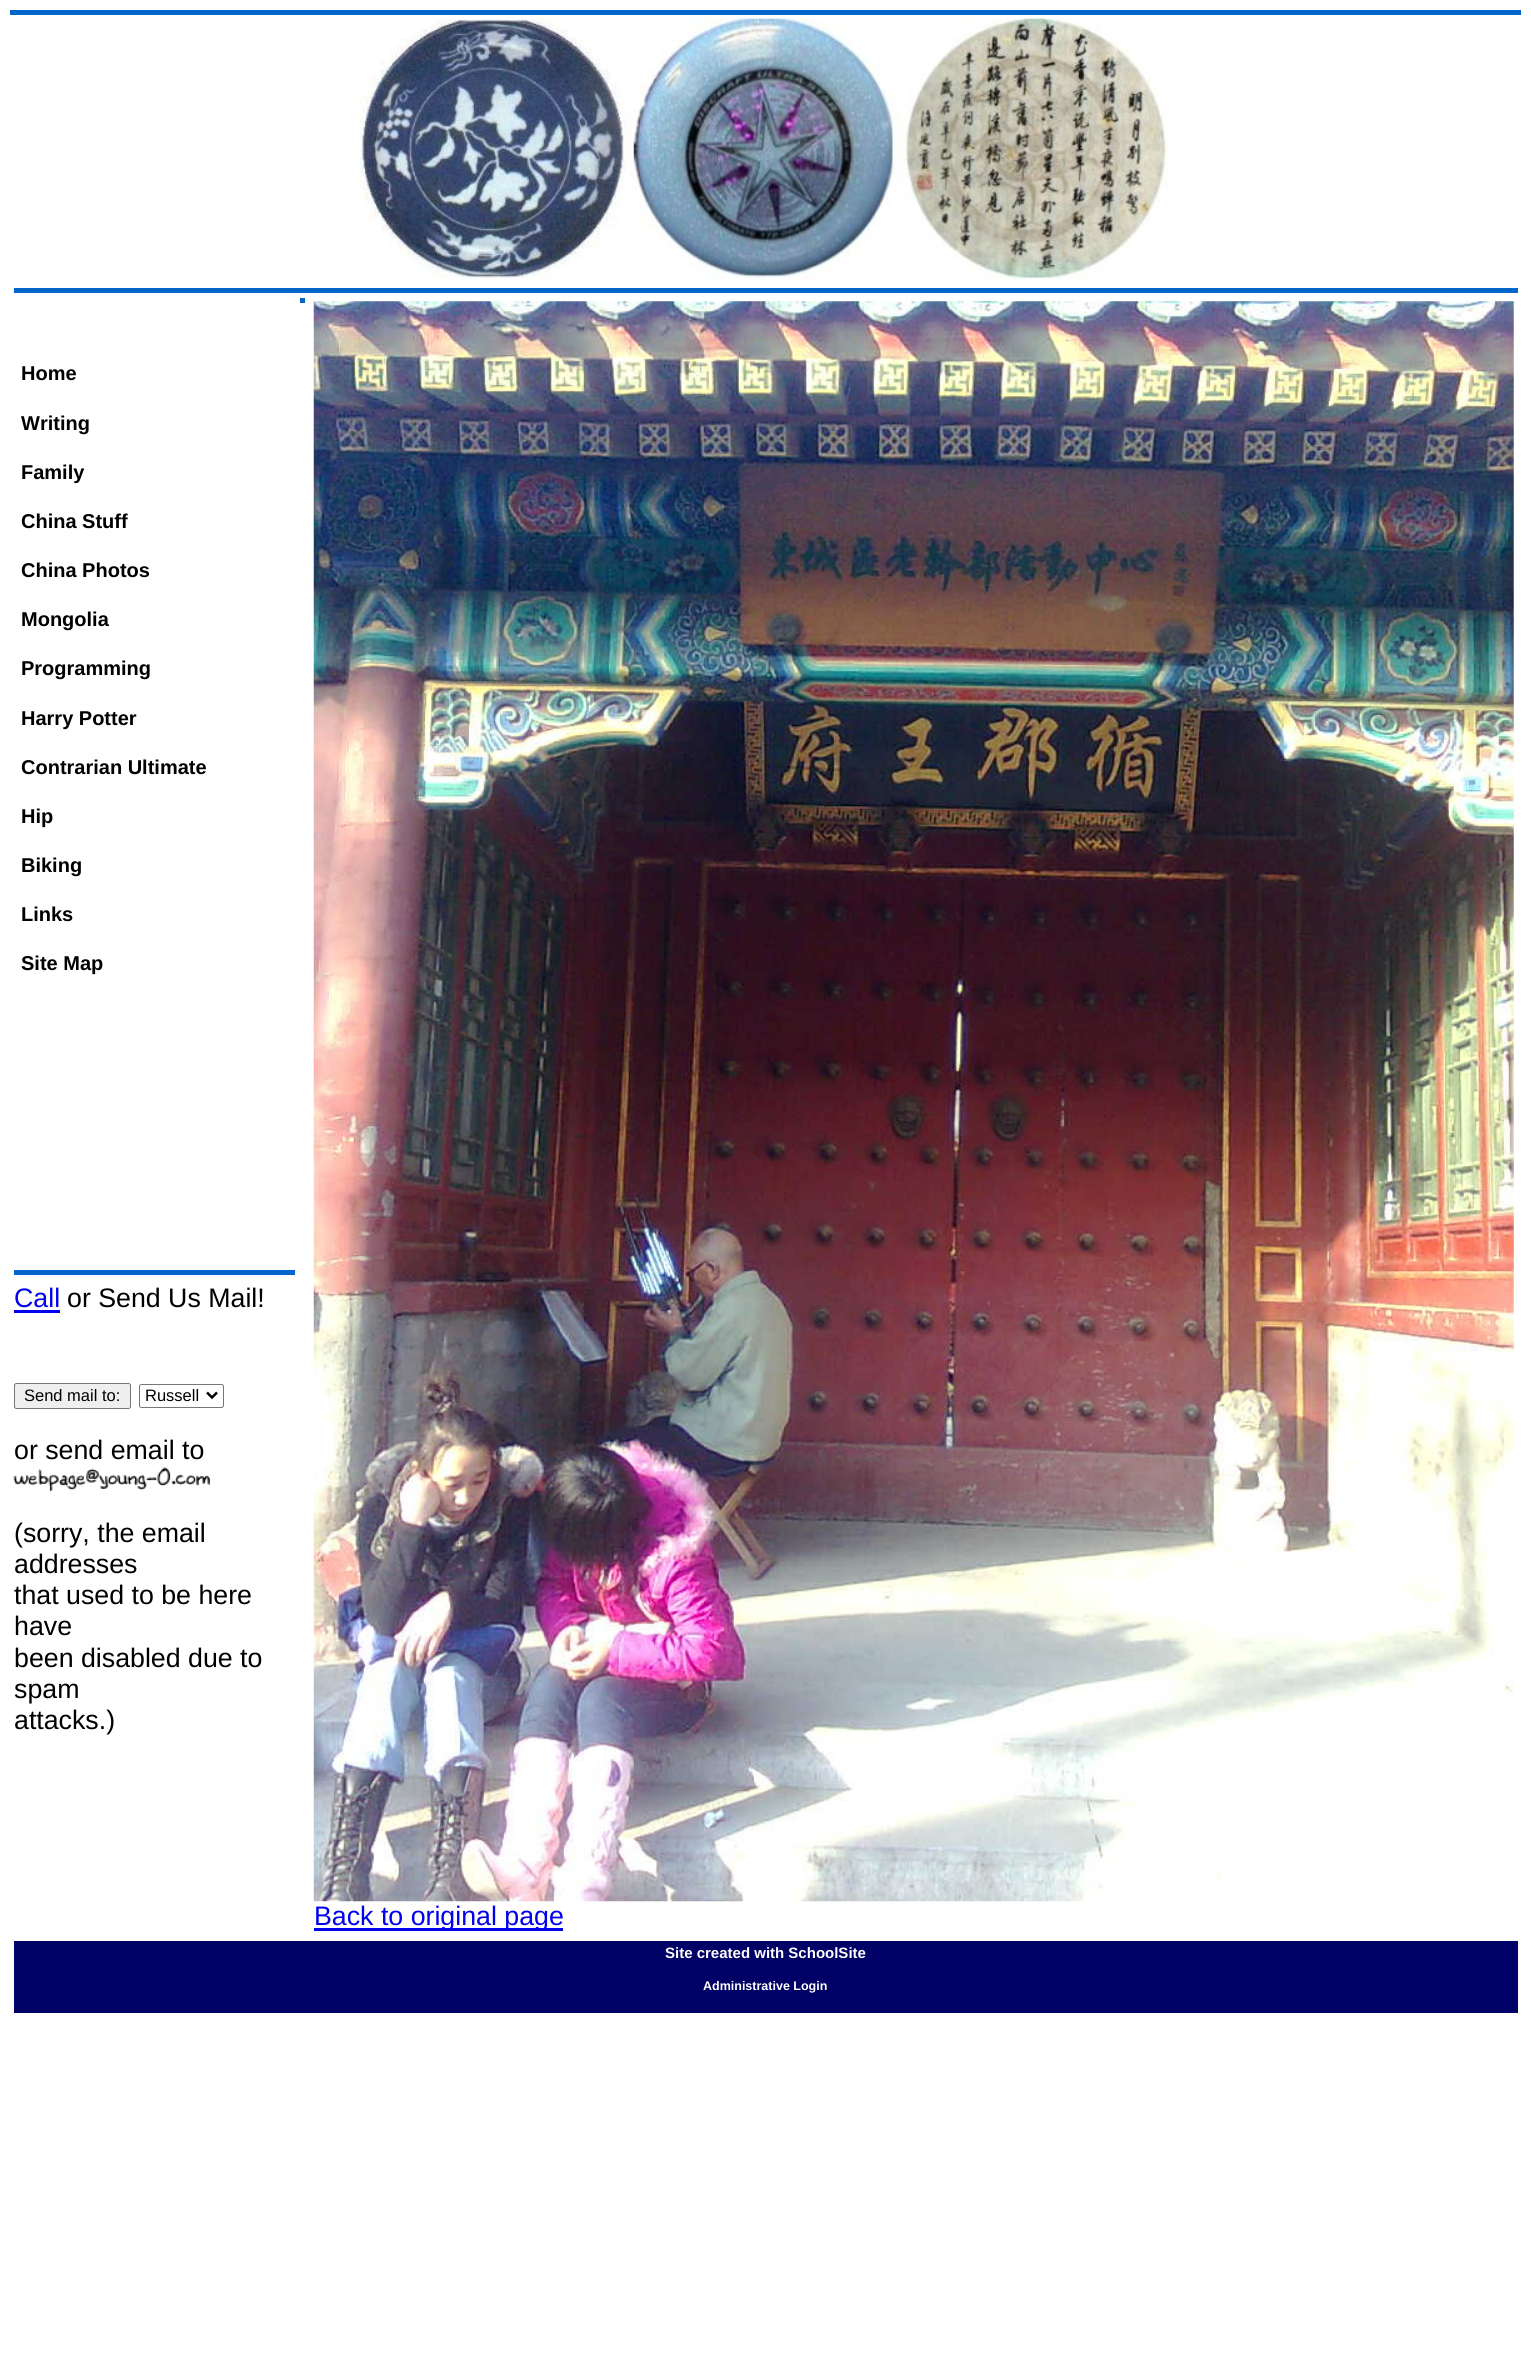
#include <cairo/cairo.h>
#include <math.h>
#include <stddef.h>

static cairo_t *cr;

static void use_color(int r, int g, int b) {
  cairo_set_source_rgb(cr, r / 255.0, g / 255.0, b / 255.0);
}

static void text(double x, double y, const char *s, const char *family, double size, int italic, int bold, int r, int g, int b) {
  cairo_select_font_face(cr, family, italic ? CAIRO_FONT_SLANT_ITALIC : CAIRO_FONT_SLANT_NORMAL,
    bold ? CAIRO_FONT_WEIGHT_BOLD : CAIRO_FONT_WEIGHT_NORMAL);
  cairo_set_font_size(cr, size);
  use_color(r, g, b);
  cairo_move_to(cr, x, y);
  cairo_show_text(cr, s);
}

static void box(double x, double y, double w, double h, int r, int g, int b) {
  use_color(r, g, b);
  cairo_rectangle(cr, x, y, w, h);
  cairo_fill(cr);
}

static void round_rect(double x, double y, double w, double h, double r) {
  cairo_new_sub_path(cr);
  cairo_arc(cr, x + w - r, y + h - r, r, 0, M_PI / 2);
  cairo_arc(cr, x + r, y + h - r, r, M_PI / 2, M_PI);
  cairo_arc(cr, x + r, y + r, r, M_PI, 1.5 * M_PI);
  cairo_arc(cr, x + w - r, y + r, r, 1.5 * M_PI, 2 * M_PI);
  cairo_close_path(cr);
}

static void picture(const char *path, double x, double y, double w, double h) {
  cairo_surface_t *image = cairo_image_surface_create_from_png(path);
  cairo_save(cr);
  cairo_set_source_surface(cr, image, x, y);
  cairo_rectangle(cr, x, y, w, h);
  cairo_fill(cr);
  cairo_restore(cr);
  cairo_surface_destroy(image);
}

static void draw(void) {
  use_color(255, 255, 255);
  cairo_paint(cr);
  box(10, 10, 1511, 5, 0, 102, 204);
  picture("img_01.png", 360, 18, 810, 261);
  box(14, 288, 1504, 5, 0, 102, 204);
  box(300, 298, 5, 5, 0, 102, 204);
  picture("img_02.png", 313, 301, 1201, 1601);
  box(314, 1928, 249, 3, 0, 0, 238);
  box(14, 1270, 281, 5, 0, 102, 204);
  box(14, 1310, 46, 3, 0, 0, 238);
  use_color(239, 239, 239);
  round_rect(14.5, 1383.5, 116, 25, 2);
  cairo_fill_preserve(cr);
  use_color(118, 118, 118);
  cairo_set_line_width(cr, 1);
  cairo_stroke(cr);
  round_rect(139.5, 1384.5, 84, 23, 2);
  cairo_stroke(cr);
  cairo_new_path(cr);
  cairo_move_to(cr, 207, 1392.5);
  cairo_line_to(cr, 212, 1397.5);
  cairo_line_to(cr, 217, 1392.5);
  use_color(0, 0, 0);
  cairo_set_line_width(cr, 2.5);
  cairo_stroke(cr);
  picture("img_03.png", 13, 1467, 197, 25);
  box(14, 1941, 1504, 72, 0, 0, 102);
  text(21, 380, "Home", "Liberation Sans", 20, 0, 1, 0, 0, 0);
  text(21, 430, "Writing", "Liberation Sans", 20, 0, 1, 0, 0, 0);
  text(21, 479, "Family", "Liberation Sans", 20, 0, 1, 0, 0, 0);
  text(21, 528, "China Stuff", "Liberation Sans", 20, 0, 1, 0, 0, 0);
  text(21, 577, "China Photos", "Liberation Sans", 20, 0, 1, 0, 0, 0);
  text(21, 626, "Mongolia", "Liberation Sans", 20, 0, 1, 0, 0, 0);
  text(21, 675, "Programming", "Liberation Sans", 20, 0, 1, 0, 0, 0);
  text(21, 725, "Harry Potter", "Liberation Sans", 20, 0, 1, 0, 0, 0);
  text(21, 774, "Contrarian Ultimate", "Liberation Sans", 20, 0, 1, 0, 0, 0);
  text(21, 823, "Hip", "Liberation Sans", 20, 0, 1, 0, 0, 0);
  text(21, 872, "Biking", "Liberation Sans", 20, 0, 1, 0, 0, 0);
  text(21, 921, "Links", "Liberation Sans", 20, 0, 1, 0, 0, 0);
  text(21, 970, "Site Map", "Liberation Sans", 20, 0, 1, 0, 0, 0);
  text(314, 1925, "Back to original page", "Liberation Sans", 26.75, 0, 0, 0, 0, 238);
  text(14, 1307, "Call", "Liberation Sans", 26.75, 0, 0, 0, 0, 238);
  text(67, 1307, "or Send Us Mail!", "Liberation Sans", 26.75, 0, 0, 0, 0, 0);
  text(24, 1401, "Send mail to:", "Liberation Sans", 16.5, 0, 0, 0, 0, 0);
  text(145, 1401, "Russell", "Liberation Sans", 16.5, 0, 0, 0, 0, 0);
  text(14, 1459, "or send email to", "Liberation Sans", 26.75, 0, 0, 0, 0, 0);
  text(14, 1542, "(sorry, the email", "Liberation Sans", 26.75, 0, 0, 0, 0, 0);
  text(14, 1573, "addresses", "Liberation Sans", 26.75, 0, 0, 0, 0, 0);
  text(14, 1604, "that used to be here", "Liberation Sans", 26.75, 0, 0, 0, 0, 0);
  text(14, 1635, "have", "Liberation Sans", 26.75, 0, 0, 0, 0, 0);
  text(14, 1667, "been disabled due to", "Liberation Sans", 26.75, 0, 0, 0, 0, 0);
  text(14, 1698, "spam", "Liberation Sans", 26.75, 0, 0, 0, 0, 0);
  text(14, 1729, "attacks.)", "Liberation Sans", 26.75, 0, 0, 0, 0, 0);
  text(665, 1958, "Site created with SchoolSite", "Liberation Sans", 15, 0, 1, 255, 255, 255);
  text(703, 1990, "Administrative Login", "Liberation Sans", 12.5, 0, 1, 255, 255, 255);
}

int main(void) {
  cairo_surface_t *surface = cairo_image_surface_create(CAIRO_FORMAT_RGB24, 1531, 2363);
  cr = cairo_create(surface);
  cairo_font_options_t *options = cairo_font_options_create();
  cairo_font_options_set_hint_metrics(options, CAIRO_HINT_METRICS_OFF);
  cairo_font_options_set_hint_style(options, CAIRO_HINT_STYLE_NONE);
  cairo_set_font_options(cr, options);
  cairo_set_miter_limit(cr, 4);
  draw();
  cairo_surface_write_to_png(surface, "out.png");
  cairo_font_options_destroy(options);
  cairo_destroy(cr);
  cairo_surface_destroy(surface);
  return 0;
}
